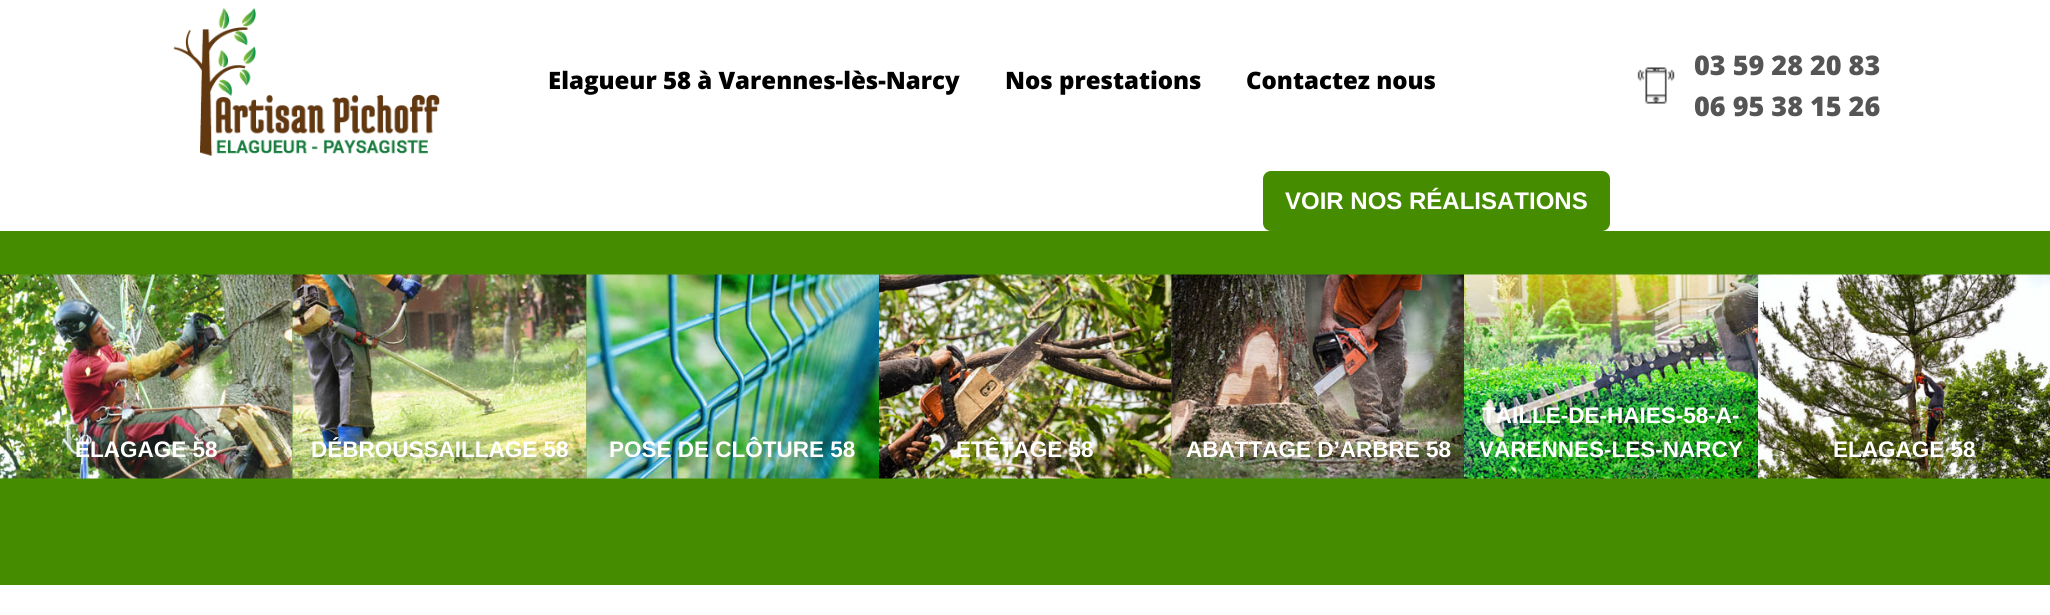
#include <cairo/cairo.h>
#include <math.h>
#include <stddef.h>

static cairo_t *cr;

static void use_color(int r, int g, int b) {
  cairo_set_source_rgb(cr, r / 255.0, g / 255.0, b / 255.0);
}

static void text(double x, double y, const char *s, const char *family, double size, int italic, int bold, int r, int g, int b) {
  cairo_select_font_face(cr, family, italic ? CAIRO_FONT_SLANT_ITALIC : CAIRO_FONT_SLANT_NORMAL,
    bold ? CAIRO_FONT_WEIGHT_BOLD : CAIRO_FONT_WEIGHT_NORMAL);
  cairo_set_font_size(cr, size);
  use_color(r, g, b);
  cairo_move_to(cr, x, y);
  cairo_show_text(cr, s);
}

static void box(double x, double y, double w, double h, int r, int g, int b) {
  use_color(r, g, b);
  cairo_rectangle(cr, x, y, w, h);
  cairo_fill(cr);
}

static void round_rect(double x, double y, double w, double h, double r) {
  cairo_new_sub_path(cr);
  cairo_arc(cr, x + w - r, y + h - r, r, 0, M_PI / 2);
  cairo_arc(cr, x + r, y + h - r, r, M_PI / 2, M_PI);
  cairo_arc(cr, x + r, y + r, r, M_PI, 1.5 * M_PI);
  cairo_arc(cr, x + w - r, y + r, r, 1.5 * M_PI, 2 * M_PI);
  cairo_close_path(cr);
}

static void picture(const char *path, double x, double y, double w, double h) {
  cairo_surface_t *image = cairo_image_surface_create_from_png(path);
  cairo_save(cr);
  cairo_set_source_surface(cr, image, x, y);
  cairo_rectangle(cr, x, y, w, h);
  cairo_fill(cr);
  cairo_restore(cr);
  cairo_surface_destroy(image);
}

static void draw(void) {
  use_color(255, 255, 255);
  cairo_paint(cr);
  picture("img_01.png", 173, 7, 267, 149);
  picture("img_02.png", 1637, 67, 38, 37);
  use_color(70, 140, 0);
  round_rect(1263, 171, 347, 60, 8);
  cairo_fill(cr);
  box(0, 231, 2050, 354, 70, 140, 0);
  picture("img_03.png", 0, 274, 293, 205);
  picture("img_04.png", 292, 274, 295, 205);
  picture("img_05.png", 586, 274, 293, 205);
  picture("img_06.png", 879, 274, 293, 205);
  picture("img_07.png", 1171, 274, 293, 205);
  picture("img_08.png", 1464, 274, 294, 205);
  picture("img_09.png", 1758, 274, 292, 205);
  text(548, 89, "Elagueur 58 à Varennes-lès-Narcy", "Open Sans ExtraBold", 24, 0, 0, 0, 0, 0);
  text(1005, 89, "Nos prestations", "Open Sans ExtraBold", 24, 0, 0, 0, 0, 0);
  text(1246, 89, "Contactez nous", "Open Sans ExtraBold", 24, 0, 0, 0, 0, 0);
  text(1694, 75, "03 59 28 20 83", "Open Sans ExtraBold", 27, 0, 0, 85, 85, 85);
  text(1694, 116, "06 95 38 15 26", "Open Sans ExtraBold", 27, 0, 0, 85, 85, 85);
  text(1285, 209, "VOIR NOS RÉALISATIONS", "Liberation Sans", 24, 0, 1, 255, 255, 255);
  text(75, 457, "ELAGAGE 58", "Liberation Sans", 22.5, 0, 1, 255, 255, 255);
  text(311, 457, "DÉBROUSSAILLAGE 58", "Liberation Sans", 22.5, 0, 1, 255, 255, 255);
  text(609, 457, "POSE DE CLÔTURE 58", "Liberation Sans", 22.5, 0, 1, 255, 255, 255);
  text(956, 457, "ETÊTAGE 58", "Liberation Sans", 22.5, 0, 1, 255, 255, 255);
  text(1186, 457, "ABATTAGE D’ARBRE 58", "Liberation Sans", 22.5, 0, 1, 255, 255, 255);
  text(1482, 423, "TAILLE-DE-HAIES-58-A-", "Liberation Sans", 22.5, 0, 1, 255, 255, 255);
  text(1479, 457, "VARENNES-LES-NARCY", "Liberation Sans", 22.5, 0, 1, 255, 255, 255);
  text(1833, 457, "ELAGAGE 58", "Liberation Sans", 22.5, 0, 1, 255, 255, 255);
}

int main(void) {
  cairo_surface_t *surface = cairo_image_surface_create(CAIRO_FORMAT_RGB24, 2050, 615);
  cr = cairo_create(surface);
  cairo_font_options_t *options = cairo_font_options_create();
  cairo_font_options_set_hint_metrics(options, CAIRO_HINT_METRICS_OFF);
  cairo_font_options_set_hint_style(options, CAIRO_HINT_STYLE_NONE);
  cairo_set_font_options(cr, options);
  cairo_set_miter_limit(cr, 4);
  draw();
  cairo_surface_write_to_png(surface, "out.png");
  cairo_font_options_destroy(options);
  cairo_destroy(cr);
  cairo_surface_destroy(surface);
  return 0;
}
